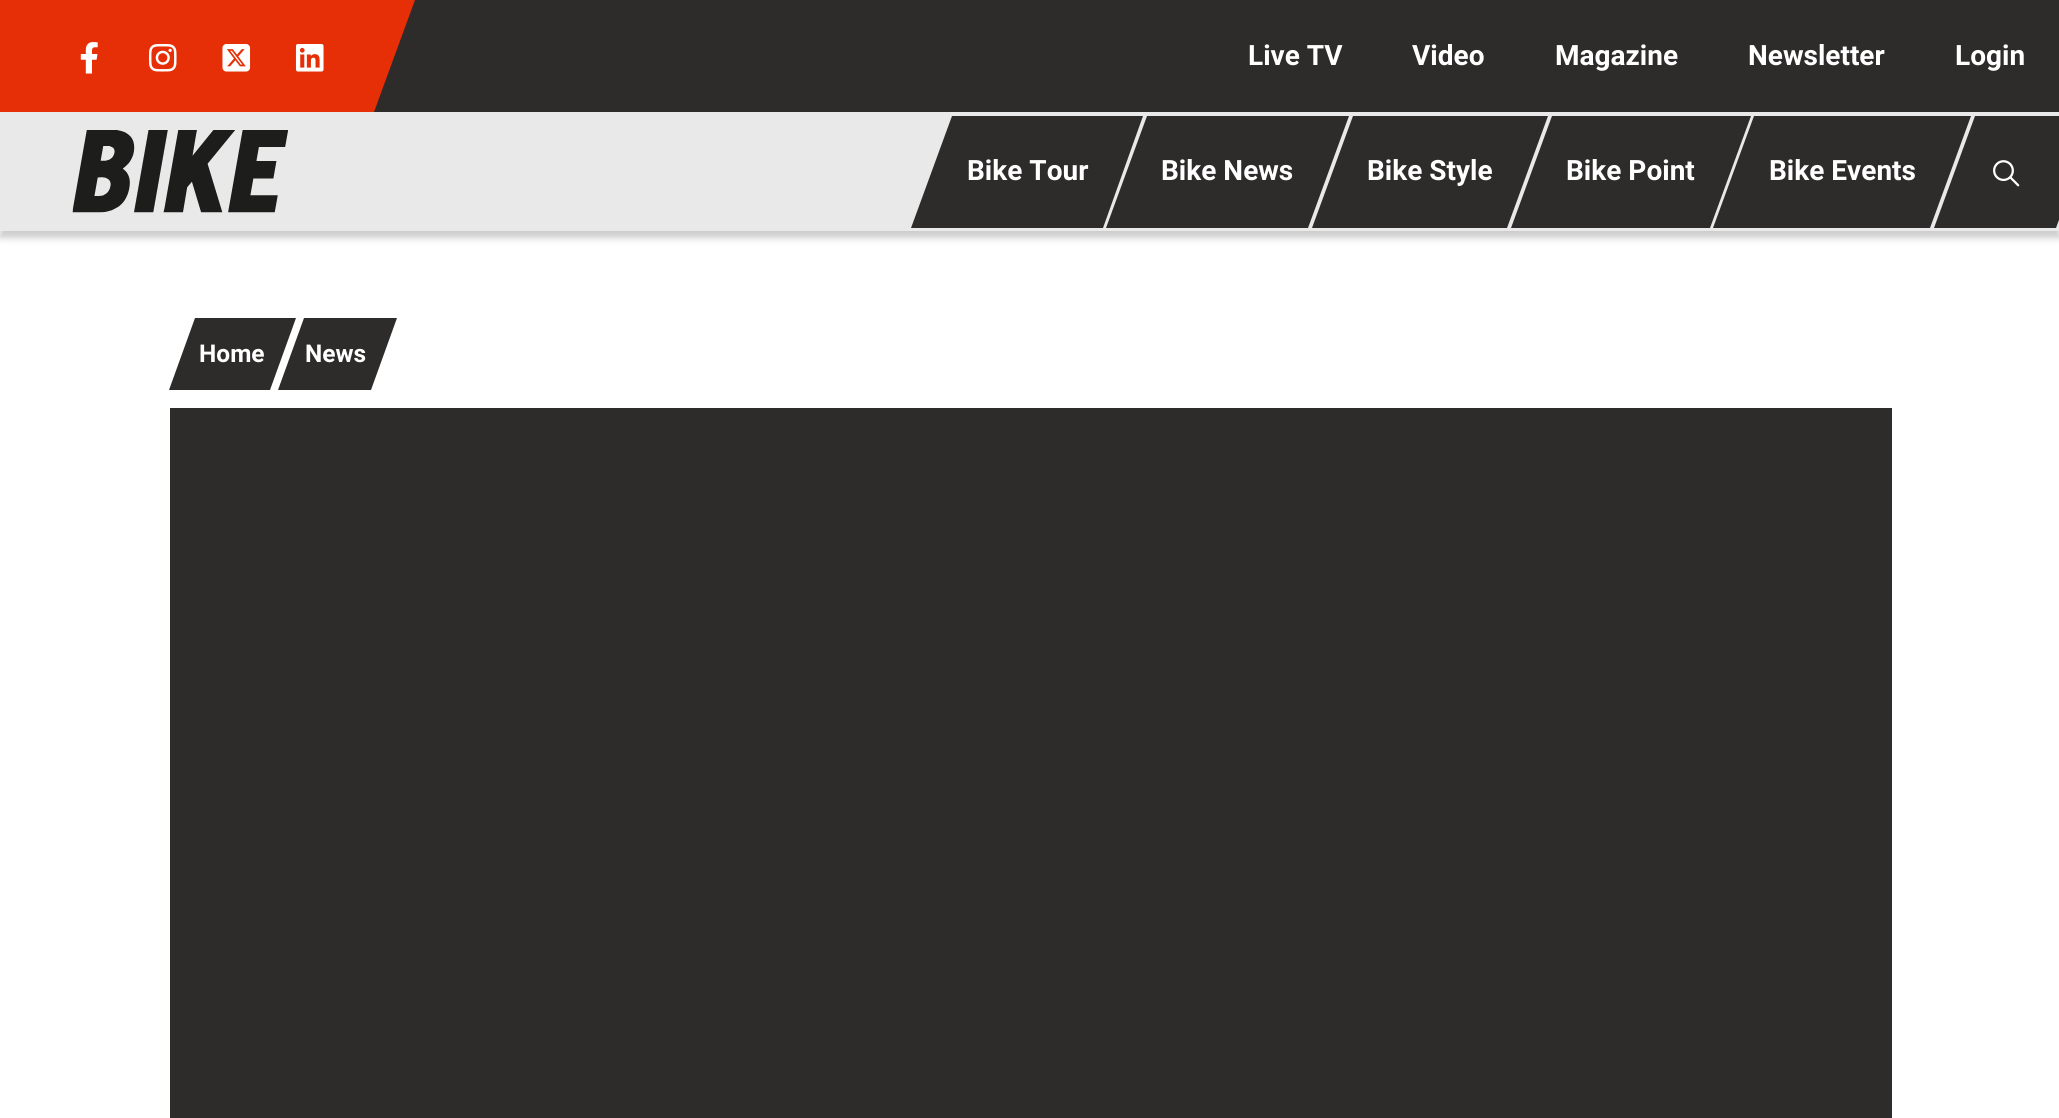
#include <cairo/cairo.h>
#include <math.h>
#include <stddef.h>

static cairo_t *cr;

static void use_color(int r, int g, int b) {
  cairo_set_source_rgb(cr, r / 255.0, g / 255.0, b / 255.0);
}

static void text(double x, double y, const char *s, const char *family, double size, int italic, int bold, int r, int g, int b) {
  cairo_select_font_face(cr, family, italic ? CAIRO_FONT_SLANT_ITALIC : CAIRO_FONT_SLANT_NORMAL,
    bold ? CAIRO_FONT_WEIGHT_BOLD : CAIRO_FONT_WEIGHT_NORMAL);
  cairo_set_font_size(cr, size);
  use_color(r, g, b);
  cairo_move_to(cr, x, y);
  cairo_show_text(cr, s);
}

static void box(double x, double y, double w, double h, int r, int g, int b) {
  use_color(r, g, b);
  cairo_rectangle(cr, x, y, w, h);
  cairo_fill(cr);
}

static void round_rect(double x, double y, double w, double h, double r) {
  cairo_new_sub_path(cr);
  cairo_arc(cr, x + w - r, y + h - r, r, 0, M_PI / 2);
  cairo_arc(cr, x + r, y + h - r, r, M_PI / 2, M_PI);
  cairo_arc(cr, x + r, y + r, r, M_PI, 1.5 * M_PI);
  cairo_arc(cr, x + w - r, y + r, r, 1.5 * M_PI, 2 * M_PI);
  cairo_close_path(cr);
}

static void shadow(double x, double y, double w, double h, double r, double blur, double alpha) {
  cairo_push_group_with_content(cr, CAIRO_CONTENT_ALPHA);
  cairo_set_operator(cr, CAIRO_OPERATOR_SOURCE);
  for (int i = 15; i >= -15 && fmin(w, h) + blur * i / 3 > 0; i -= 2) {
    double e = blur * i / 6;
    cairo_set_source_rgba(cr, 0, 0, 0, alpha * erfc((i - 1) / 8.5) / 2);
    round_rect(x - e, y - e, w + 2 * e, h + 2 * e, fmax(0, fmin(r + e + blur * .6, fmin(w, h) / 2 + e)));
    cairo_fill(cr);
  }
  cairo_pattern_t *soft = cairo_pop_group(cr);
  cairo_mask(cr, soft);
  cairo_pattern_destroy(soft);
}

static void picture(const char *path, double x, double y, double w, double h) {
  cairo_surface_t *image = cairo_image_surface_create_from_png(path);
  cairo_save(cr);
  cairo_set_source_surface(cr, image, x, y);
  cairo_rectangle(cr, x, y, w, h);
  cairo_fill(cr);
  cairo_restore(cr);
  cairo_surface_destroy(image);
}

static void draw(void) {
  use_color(255, 255, 255);
  cairo_paint(cr);
  box(374, 0, 1685, 112, 46, 43, 43);
  box(0, 0, 363, 112, 230, 47, 6);
  picture("img_01.png", 80, 42, 18, 32);
  picture("img_02.png", 148, 43, 29, 29);
  picture("img_03.png", 222, 44, 29, 28);
  picture("img_04.png", 295, 44, 29, 28);
  cairo_new_path(cr);
  cairo_move_to(cr, 363, 0);
  cairo_line_to(cr, 415, 0);
  cairo_line_to(cr, 374, 112);
  cairo_line_to(cr, 322, 112);
  cairo_close_path(cr);
  cairo_fill(cr);
  use_color(0, 0, 0);
  shadow(0, 119, 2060, 119, 0, 3.5, 0.2);
  box(0, 112, 2059, 119, 233, 233, 233);
  picture("img_05.png", 72, 130, 216, 83);
  use_color(46, 43, 43);
  cairo_new_path(cr);
  cairo_move_to(cr, 952, 116);
  cairo_line_to(cr, 1143, 116);
  cairo_line_to(cr, 1103, 228);
  cairo_line_to(cr, 911, 228);
  cairo_close_path(cr);
  cairo_fill(cr);
  cairo_new_path(cr);
  cairo_move_to(cr, 1147, 116);
  cairo_line_to(cr, 1349, 116);
  cairo_line_to(cr, 1308, 228);
  cairo_line_to(cr, 1106, 228);
  cairo_close_path(cr);
  cairo_fill(cr);
  cairo_new_path(cr);
  cairo_move_to(cr, 1353, 116);
  cairo_line_to(cr, 1548, 116);
  cairo_line_to(cr, 1507, 228);
  cairo_line_to(cr, 1312, 228);
  cairo_close_path(cr);
  cairo_fill(cr);
  cairo_new_path(cr);
  cairo_move_to(cr, 1552, 116);
  cairo_line_to(cr, 1751, 116);
  cairo_line_to(cr, 1710, 228);
  cairo_line_to(cr, 1511, 228);
  cairo_close_path(cr);
  cairo_fill(cr);
  cairo_new_path(cr);
  cairo_move_to(cr, 1754, 116);
  cairo_line_to(cr, 1971, 116);
  cairo_line_to(cr, 1930, 228);
  cairo_line_to(cr, 1713, 228);
  cairo_close_path(cr);
  cairo_fill(cr);
  cairo_new_path(cr);
  cairo_move_to(cr, 1975, 116);
  cairo_line_to(cr, 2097, 116);
  cairo_line_to(cr, 2056, 228);
  cairo_line_to(cr, 1934, 228);
  cairo_close_path(cr);
  cairo_fill(cr);
  picture("img_06.png", 1993, 160, 27, 27);
  cairo_new_path(cr);
  cairo_move_to(cr, 195, 318);
  cairo_line_to(cr, 296, 318);
  cairo_line_to(cr, 270, 390);
  cairo_line_to(cr, 169, 390);
  cairo_close_path(cr);
  cairo_fill(cr);
  cairo_new_path(cr);
  cairo_move_to(cr, 304, 318);
  cairo_line_to(cr, 397, 318);
  cairo_line_to(cr, 371, 390);
  cairo_line_to(cr, 278, 390);
  cairo_close_path(cr);
  cairo_fill(cr);
  box(170, 408, 1722, 710, 46, 43, 43);
  text(1248, 65, "Live TV", "Roboto", 28, 0, 1, 255, 255, 255);
  text(1412, 65, "Video", "Roboto", 28, 0, 1, 255, 255, 255);
  text(1555, 65, "Magazine", "Roboto", 28, 0, 1, 255, 255, 255);
  text(1748, 65, "Newsletter", "Roboto", 28, 0, 1, 255, 255, 255);
  text(1955, 65, "Login", "Roboto", 28, 0, 1, 255, 255, 255);
  text(967, 180, "Bike Tour", "Roboto", 28, 0, 1, 255, 255, 255);
  text(1161, 180, "Bike News", "Roboto", 28, 0, 1, 255, 255, 255);
  text(1367, 180, "Bike Style", "Roboto", 28, 0, 1, 255, 255, 255);
  text(1566, 180, "Bike Point", "Roboto", 28, 0, 1, 255, 255, 255);
  text(1769, 180, "Bike Events", "Roboto", 28, 0, 1, 255, 255, 255);
  text(199, 362, "Home", "Roboto", 24.5, 0, 1, 255, 255, 255);
  text(305, 362, "News", "Roboto", 24.5, 0, 1, 255, 255, 255);
}

int main(void) {
  cairo_surface_t *surface = cairo_image_surface_create(CAIRO_FORMAT_RGB24, 2059, 1118);
  cr = cairo_create(surface);
  cairo_font_options_t *options = cairo_font_options_create();
  cairo_font_options_set_hint_metrics(options, CAIRO_HINT_METRICS_OFF);
  cairo_font_options_set_hint_style(options, CAIRO_HINT_STYLE_NONE);
  cairo_set_font_options(cr, options);
  cairo_set_miter_limit(cr, 4);
  draw();
  cairo_surface_write_to_png(surface, "out.png");
  cairo_font_options_destroy(options);
  cairo_destroy(cr);
  cairo_surface_destroy(surface);
  return 0;
}
